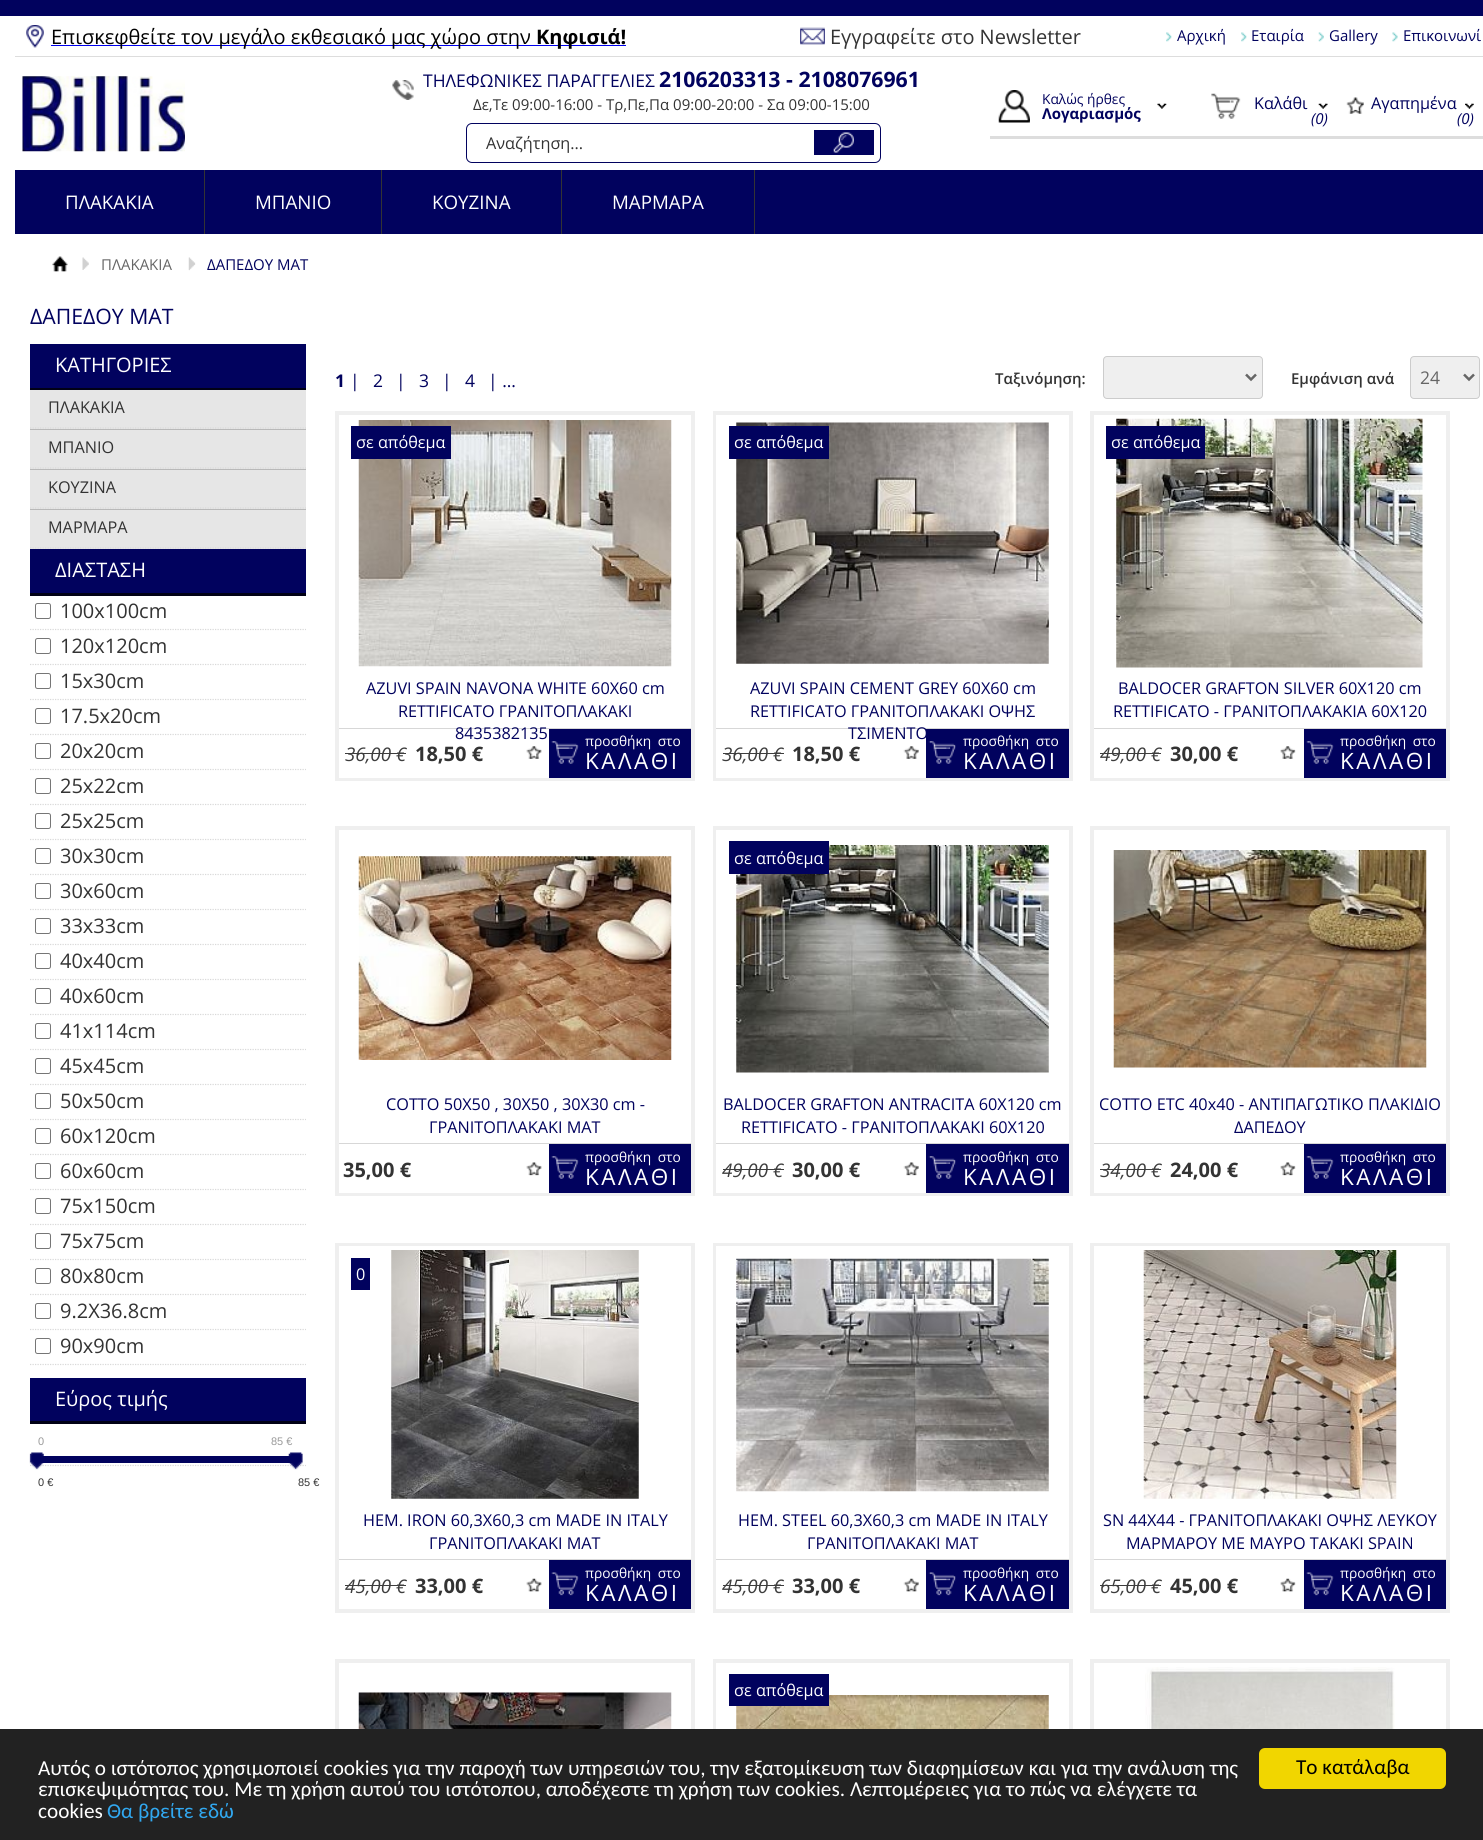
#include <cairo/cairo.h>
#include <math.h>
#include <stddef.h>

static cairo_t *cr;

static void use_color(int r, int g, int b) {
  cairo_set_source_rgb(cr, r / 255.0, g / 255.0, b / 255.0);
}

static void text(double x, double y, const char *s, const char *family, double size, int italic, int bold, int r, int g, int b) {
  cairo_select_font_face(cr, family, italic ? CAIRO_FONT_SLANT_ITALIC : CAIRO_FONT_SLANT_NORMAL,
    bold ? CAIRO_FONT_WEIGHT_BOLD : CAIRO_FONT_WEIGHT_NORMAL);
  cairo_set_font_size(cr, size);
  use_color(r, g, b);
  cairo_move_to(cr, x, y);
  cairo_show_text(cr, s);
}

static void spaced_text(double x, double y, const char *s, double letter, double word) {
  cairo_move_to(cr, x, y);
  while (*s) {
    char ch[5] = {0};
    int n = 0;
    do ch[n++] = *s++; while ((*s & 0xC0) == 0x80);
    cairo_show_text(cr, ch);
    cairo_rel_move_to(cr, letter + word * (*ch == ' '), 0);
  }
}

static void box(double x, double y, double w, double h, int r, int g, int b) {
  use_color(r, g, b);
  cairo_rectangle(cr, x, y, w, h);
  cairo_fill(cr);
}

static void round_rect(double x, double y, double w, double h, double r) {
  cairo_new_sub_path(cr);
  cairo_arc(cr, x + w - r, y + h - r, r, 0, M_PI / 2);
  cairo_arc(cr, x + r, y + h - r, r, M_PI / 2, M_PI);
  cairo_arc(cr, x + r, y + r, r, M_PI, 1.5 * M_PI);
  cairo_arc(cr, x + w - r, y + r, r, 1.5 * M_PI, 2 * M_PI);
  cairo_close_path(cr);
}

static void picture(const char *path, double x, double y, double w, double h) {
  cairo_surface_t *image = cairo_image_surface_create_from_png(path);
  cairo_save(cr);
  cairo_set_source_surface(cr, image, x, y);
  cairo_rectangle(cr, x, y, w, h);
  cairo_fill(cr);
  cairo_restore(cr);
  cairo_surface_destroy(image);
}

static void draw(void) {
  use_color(255, 255, 255);
  cairo_paint(cr);
  box(0, 0, 1483, 16, 1, 2, 94);
  box(15, 56, 1468, 1, 221, 221, 221);
  picture("img_01.png", 26, 25, 18, 23);
  box(51, 45, 575, 1, 0, 0, 238);
  picture("img_02.png", 800, 27, 25, 18);
  picture("img_03.png", 1166, 32, 6, 10);
  picture("img_03.png", 1241, 32, 6, 10);
  picture("img_04.png", 1318, 32, 6, 10);
  picture("img_05.png", 1392, 32, 6, 10);
  picture("img_06.png", 22, 76, 163, 76);
  picture("img_07.png", 392, 80, 22, 20);
  box(990, 136, 493, 3, 221, 221, 221);
  picture("img_08.png", 998, 90, 32, 33);
  picture("img_09.png", 1157, 103, 10, 6);
  picture("img_10.png", 1211, 93, 30, 26);
  picture("img_11.png", 1318, 103, 10, 6);
  picture("img_12.png", 1346, 97, 18, 17);
  picture("img_13.png", 1465, 103, 9, 6);
  round_rect(466.5, 123.5, 414, 39, 5.5);
  use_color(1, 2, 94);
  cairo_set_line_width(cr, 1);
  cairo_stroke(cr);
  box(814, 130, 60, 25, 1, 2, 94);
  picture("img_14.png", 833, 132, 21, 21);
  box(15, 170, 1468, 64, 1, 2, 94);
  box(204, 170, 1, 64, 51, 51, 51);
  box(381, 170, 1, 64, 51, 51, 51);
  box(561, 170, 1, 64, 51, 51, 51);
  box(754, 170, 1, 64, 51, 51, 51);
  picture("img_15.png", 52, 256, 16, 16);
  picture("img_16.png", 82, 257, 7, 13);
  picture("img_17.png", 188, 257, 8, 14);
  box(30, 344, 276, 44, 1, 2, 94);
  box(30, 388, 276, 2, 1, 1, 22);
  box(30, 390, 276, 39, 230, 230, 230);
  cairo_new_path(cr);
  cairo_move_to(cr, 30, 428);
  cairo_line_to(cr, 306, 428);
  use_color(217, 217, 217);
  cairo_set_line_width(cr, 1.2);
  cairo_set_dash(cr, (double[]){1.25, 1.25}, 2, 0);
  cairo_stroke(cr);
  box(30, 430, 276, 39, 230, 230, 230);
  cairo_new_path(cr);
  cairo_move_to(cr, 30, 468);
  cairo_line_to(cr, 306, 468);
  use_color(217, 217, 217);
  cairo_stroke(cr);
  box(30, 429, 276, 1, 185, 185, 185);
  box(30, 470, 276, 39, 230, 230, 230);
  cairo_new_path(cr);
  cairo_move_to(cr, 30, 508);
  cairo_line_to(cr, 306, 508);
  use_color(217, 217, 217);
  cairo_stroke(cr);
  box(30, 469, 276, 1, 185, 185, 185);
  box(30, 510, 276, 39, 230, 230, 230);
  cairo_new_path(cr);
  cairo_move_to(cr, 30, 548);
  cairo_line_to(cr, 306, 548);
  use_color(217, 217, 217);
  cairo_stroke(cr);
  box(30, 509, 276, 1, 185, 185, 185);
  box(30, 549, 276, 44, 1, 2, 94);
  box(30, 593, 276, 3, 1, 1, 22);
  cairo_new_path(cr);
  cairo_move_to(cr, 30, 629.5);
  cairo_line_to(cr, 306, 629.5);
  use_color(217, 217, 217);
  cairo_stroke(cr);
  round_rect(35.5, 603.5, 15, 15, 2);
  use_color(118, 118, 118);
  cairo_set_line_width(cr, 1);
  cairo_set_dash(cr, NULL, 0, 0);
  cairo_stroke(cr);
  cairo_new_path(cr);
  cairo_move_to(cr, 30, 664.5);
  cairo_line_to(cr, 306, 664.5);
  use_color(217, 217, 217);
  cairo_set_line_width(cr, 1.2);
  cairo_set_dash(cr, (double[]){1.25, 1.25}, 2, 0);
  cairo_stroke(cr);
  round_rect(35.5, 638.5, 15, 15, 2);
  use_color(118, 118, 118);
  cairo_set_line_width(cr, 1);
  cairo_set_dash(cr, NULL, 0, 0);
  cairo_stroke(cr);
  cairo_new_path(cr);
  cairo_move_to(cr, 30, 699.5);
  cairo_line_to(cr, 306, 699.5);
  use_color(217, 217, 217);
  cairo_set_line_width(cr, 1.2);
  cairo_set_dash(cr, (double[]){1.25, 1.25}, 2, 0);
  cairo_stroke(cr);
  round_rect(35.5, 673.5, 15, 15, 2);
  use_color(118, 118, 118);
  cairo_set_line_width(cr, 1);
  cairo_set_dash(cr, NULL, 0, 0);
  cairo_stroke(cr);
  cairo_new_path(cr);
  cairo_move_to(cr, 30, 734.5);
  cairo_line_to(cr, 306, 734.5);
  use_color(217, 217, 217);
  cairo_set_line_width(cr, 1.2);
  cairo_set_dash(cr, (double[]){1.25, 1.25}, 2, 0);
  cairo_stroke(cr);
  round_rect(35.5, 708.5, 15, 15, 2);
  use_color(118, 118, 118);
  cairo_set_line_width(cr, 1);
  cairo_set_dash(cr, NULL, 0, 0);
  cairo_stroke(cr);
  cairo_new_path(cr);
  cairo_move_to(cr, 30, 769.5);
  cairo_line_to(cr, 306, 769.5);
  use_color(217, 217, 217);
  cairo_set_line_width(cr, 1.2);
  cairo_set_dash(cr, (double[]){1.25, 1.25}, 2, 0);
  cairo_stroke(cr);
  round_rect(35.5, 743.5, 15, 15, 2);
  use_color(118, 118, 118);
  cairo_set_line_width(cr, 1);
  cairo_set_dash(cr, NULL, 0, 0);
  cairo_stroke(cr);
  cairo_new_path(cr);
  cairo_move_to(cr, 30, 804.5);
  cairo_line_to(cr, 306, 804.5);
  use_color(217, 217, 217);
  cairo_set_line_width(cr, 1.2);
  cairo_set_dash(cr, (double[]){1.25, 1.25}, 2, 0);
  cairo_stroke(cr);
  round_rect(35.5, 778.5, 15, 15, 2);
  use_color(118, 118, 118);
  cairo_set_line_width(cr, 1);
  cairo_set_dash(cr, NULL, 0, 0);
  cairo_stroke(cr);
  cairo_new_path(cr);
  cairo_move_to(cr, 30, 839.5);
  cairo_line_to(cr, 306, 839.5);
  use_color(217, 217, 217);
  cairo_set_line_width(cr, 1.2);
  cairo_set_dash(cr, (double[]){1.25, 1.25}, 2, 0);
  cairo_stroke(cr);
  round_rect(35.5, 813.5, 15, 15, 2);
  use_color(118, 118, 118);
  cairo_set_line_width(cr, 1);
  cairo_set_dash(cr, NULL, 0, 0);
  cairo_stroke(cr);
  cairo_new_path(cr);
  cairo_move_to(cr, 30, 874.5);
  cairo_line_to(cr, 306, 874.5);
  use_color(217, 217, 217);
  cairo_set_line_width(cr, 1.2);
  cairo_set_dash(cr, (double[]){1.25, 1.25}, 2, 0);
  cairo_stroke(cr);
  round_rect(35.5, 848.5, 15, 15, 2);
  use_color(118, 118, 118);
  cairo_set_line_width(cr, 1);
  cairo_set_dash(cr, NULL, 0, 0);
  cairo_stroke(cr);
  cairo_new_path(cr);
  cairo_move_to(cr, 30, 909.5);
  cairo_line_to(cr, 306, 909.5);
  use_color(217, 217, 217);
  cairo_set_line_width(cr, 1.2);
  cairo_set_dash(cr, (double[]){1.25, 1.25}, 2, 0);
  cairo_stroke(cr);
  round_rect(35.5, 883.5, 15, 15, 2);
  use_color(118, 118, 118);
  cairo_set_line_width(cr, 1);
  cairo_set_dash(cr, NULL, 0, 0);
  cairo_stroke(cr);
  cairo_new_path(cr);
  cairo_move_to(cr, 30, 944.5);
  cairo_line_to(cr, 306, 944.5);
  use_color(217, 217, 217);
  cairo_set_line_width(cr, 1.2);
  cairo_set_dash(cr, (double[]){1.25, 1.25}, 2, 0);
  cairo_stroke(cr);
  round_rect(35.5, 918.5, 15, 15, 2);
  use_color(118, 118, 118);
  cairo_set_line_width(cr, 1);
  cairo_set_dash(cr, NULL, 0, 0);
  cairo_stroke(cr);
  cairo_new_path(cr);
  cairo_move_to(cr, 30, 979.5);
  cairo_line_to(cr, 306, 979.5);
  use_color(217, 217, 217);
  cairo_set_line_width(cr, 1.2);
  cairo_set_dash(cr, (double[]){1.25, 1.25}, 2, 0);
  cairo_stroke(cr);
  round_rect(35.5, 953.5, 15, 15, 2);
  use_color(118, 118, 118);
  cairo_set_line_width(cr, 1);
  cairo_set_dash(cr, NULL, 0, 0);
  cairo_stroke(cr);
  cairo_new_path(cr);
  cairo_move_to(cr, 30, 1014.5);
  cairo_line_to(cr, 306, 1014.5);
  use_color(217, 217, 217);
  cairo_set_line_width(cr, 1.2);
  cairo_set_dash(cr, (double[]){1.25, 1.25}, 2, 0);
  cairo_stroke(cr);
  round_rect(35.5, 988.5, 15, 15, 2);
  use_color(118, 118, 118);
  cairo_set_line_width(cr, 1);
  cairo_set_dash(cr, NULL, 0, 0);
  cairo_stroke(cr);
  cairo_new_path(cr);
  cairo_move_to(cr, 30, 1049.5);
  cairo_line_to(cr, 306, 1049.5);
  use_color(217, 217, 217);
  cairo_set_line_width(cr, 1.2);
  cairo_set_dash(cr, (double[]){1.25, 1.25}, 2, 0);
  cairo_stroke(cr);
  round_rect(35.5, 1023.5, 15, 15, 2);
  use_color(118, 118, 118);
  cairo_set_line_width(cr, 1);
  cairo_set_dash(cr, NULL, 0, 0);
  cairo_stroke(cr);
  cairo_new_path(cr);
  cairo_move_to(cr, 30, 1084.5);
  cairo_line_to(cr, 306, 1084.5);
  use_color(217, 217, 217);
  cairo_set_line_width(cr, 1.2);
  cairo_set_dash(cr, (double[]){1.25, 1.25}, 2, 0);
  cairo_stroke(cr);
  round_rect(35.5, 1058.5, 15, 15, 2);
  use_color(118, 118, 118);
  cairo_set_line_width(cr, 1);
  cairo_set_dash(cr, NULL, 0, 0);
  cairo_stroke(cr);
  cairo_new_path(cr);
  cairo_move_to(cr, 30, 1119.5);
  cairo_line_to(cr, 306, 1119.5);
  use_color(217, 217, 217);
  cairo_set_line_width(cr, 1.2);
  cairo_set_dash(cr, (double[]){1.25, 1.25}, 2, 0);
  cairo_stroke(cr);
  round_rect(35.5, 1093.5, 15, 15, 2);
  use_color(118, 118, 118);
  cairo_set_line_width(cr, 1);
  cairo_set_dash(cr, NULL, 0, 0);
  cairo_stroke(cr);
  cairo_new_path(cr);
  cairo_move_to(cr, 30, 1154.5);
  cairo_line_to(cr, 306, 1154.5);
  use_color(217, 217, 217);
  cairo_set_line_width(cr, 1.2);
  cairo_set_dash(cr, (double[]){1.25, 1.25}, 2, 0);
  cairo_stroke(cr);
  round_rect(35.5, 1128.5, 15, 15, 2);
  use_color(118, 118, 118);
  cairo_set_line_width(cr, 1);
  cairo_set_dash(cr, NULL, 0, 0);
  cairo_stroke(cr);
  cairo_new_path(cr);
  cairo_move_to(cr, 30, 1189.5);
  cairo_line_to(cr, 306, 1189.5);
  use_color(217, 217, 217);
  cairo_set_line_width(cr, 1.2);
  cairo_set_dash(cr, (double[]){1.25, 1.25}, 2, 0);
  cairo_stroke(cr);
  round_rect(35.5, 1163.5, 15, 15, 2);
  use_color(118, 118, 118);
  cairo_set_line_width(cr, 1);
  cairo_set_dash(cr, NULL, 0, 0);
  cairo_stroke(cr);
  cairo_new_path(cr);
  cairo_move_to(cr, 30, 1224.5);
  cairo_line_to(cr, 306, 1224.5);
  use_color(217, 217, 217);
  cairo_set_line_width(cr, 1.2);
  cairo_set_dash(cr, (double[]){1.25, 1.25}, 2, 0);
  cairo_stroke(cr);
  round_rect(35.5, 1198.5, 15, 15, 2);
  use_color(118, 118, 118);
  cairo_set_line_width(cr, 1);
  cairo_set_dash(cr, NULL, 0, 0);
  cairo_stroke(cr);
  cairo_new_path(cr);
  cairo_move_to(cr, 30, 1259.5);
  cairo_line_to(cr, 306, 1259.5);
  use_color(217, 217, 217);
  cairo_set_line_width(cr, 1.2);
  cairo_set_dash(cr, (double[]){1.25, 1.25}, 2, 0);
  cairo_stroke(cr);
  round_rect(35.5, 1233.5, 15, 15, 2);
  use_color(118, 118, 118);
  cairo_set_line_width(cr, 1);
  cairo_set_dash(cr, NULL, 0, 0);
  cairo_stroke(cr);
  cairo_new_path(cr);
  cairo_move_to(cr, 30, 1294.5);
  cairo_line_to(cr, 306, 1294.5);
  use_color(217, 217, 217);
  cairo_set_line_width(cr, 1.2);
  cairo_set_dash(cr, (double[]){1.25, 1.25}, 2, 0);
  cairo_stroke(cr);
  round_rect(35.5, 1268.5, 15, 15, 2);
  use_color(118, 118, 118);
  cairo_set_line_width(cr, 1);
  cairo_set_dash(cr, NULL, 0, 0);
  cairo_stroke(cr);
  cairo_new_path(cr);
  cairo_move_to(cr, 30, 1329.5);
  cairo_line_to(cr, 306, 1329.5);
  use_color(217, 217, 217);
  cairo_set_line_width(cr, 1.2);
  cairo_set_dash(cr, (double[]){1.25, 1.25}, 2, 0);
  cairo_stroke(cr);
  round_rect(35.5, 1303.5, 15, 15, 2);
  use_color(118, 118, 118);
  cairo_set_line_width(cr, 1);
  cairo_set_dash(cr, NULL, 0, 0);
  cairo_stroke(cr);
  cairo_new_path(cr);
  cairo_move_to(cr, 30, 1364.5);
  cairo_line_to(cr, 306, 1364.5);
  use_color(217, 217, 217);
  cairo_set_line_width(cr, 1.2);
  cairo_set_dash(cr, (double[]){1.25, 1.25}, 2, 0);
  cairo_stroke(cr);
  round_rect(35.5, 1338.5, 15, 15, 2);
  use_color(118, 118, 118);
  cairo_set_line_width(cr, 1);
  cairo_set_dash(cr, NULL, 0, 0);
  cairo_stroke(cr);
  box(30, 1378, 276, 43, 1, 2, 94);
  box(30, 1421, 276, 3, 1, 1, 22);
  cairo_new_path(cr);
  cairo_move_to(cr, 30, 1465.5);
  cairo_line_to(cr, 306, 1465.5);
  use_color(217, 217, 217);
  cairo_set_line_width(cr, 1.2);
  cairo_set_dash(cr, (double[]){1.25, 1.25}, 2, 0);
  cairo_stroke(cr);
  box(36, 1456, 259, 7, 1, 2, 94);
  picture("img_18.png", 29, 1452, 15, 18);
  picture("img_19.png", 288, 1452, 15, 18);
  use_color(239, 239, 239);
  round_rect(1103.5, 356.5, 159, 42, 3.5);
  cairo_fill_preserve(cr);
  use_color(204, 204, 204);
  cairo_set_line_width(cr, 1);
  cairo_set_dash(cr, NULL, 0, 0);
  cairo_stroke(cr);
  cairo_new_path(cr);
  cairo_move_to(cr, 1246, 374.5);
  cairo_line_to(cr, 1251, 379.5);
  cairo_line_to(cr, 1256, 374.5);
  use_color(102, 102, 102);
  cairo_set_line_width(cr, 2.5);
  cairo_stroke(cr);
  use_color(239, 239, 239);
  round_rect(1410.5, 356.5, 69, 42, 3.5);
  cairo_fill_preserve(cr);
  use_color(204, 204, 204);
  cairo_set_line_width(cr, 1);
  cairo_stroke(cr);
  cairo_new_path(cr);
  cairo_move_to(cr, 1464, 374.5);
  cairo_line_to(cr, 1469, 379.5);
  cairo_line_to(cr, 1474, 374.5);
  use_color(102, 102, 102);
  cairo_set_line_width(cr, 2.5);
  cairo_stroke(cr);
  cairo_rectangle(cr, 337, 413, 356, 366);
  use_color(239, 239, 239);
  cairo_set_line_width(cr, 4);
  cairo_stroke(cr);
  box(339, 777, 352, 1, 255, 255, 255);
  picture("img_20.png", 358, 420, 314, 247);
  box(351, 426, 100, 33, 1, 2, 94);
  box(339, 728, 352, 1, 215, 215, 215);
  box(345, 753, 61, 1, 61, 61, 61);
  picture("img_21.png", 526, 746, 16, 13);
  box(549, 729, 142, 49, 1, 2, 94);
  picture("img_22.png", 551, 741, 28, 23);
  cairo_rectangle(cr, 715, 413, 356, 366);
  use_color(239, 239, 239);
  cairo_stroke(cr);
  box(716, 415, 353, 363, 255, 255, 255);
  picture("img_23.png", 736, 422, 313, 242);
  box(729, 426, 100, 33, 1, 2, 94);
  box(716, 728, 353, 1, 215, 215, 215);
  box(723, 753, 61, 1, 61, 61, 61);
  picture("img_24.png", 903, 746, 16, 13);
  box(926, 729, 143, 49, 1, 2, 94);
  picture("img_25.png", 928, 741, 28, 23);
  cairo_rectangle(cr, 1092, 413, 356, 366);
  use_color(239, 239, 239);
  cairo_stroke(cr);
  box(1094, 777, 352, 1, 255, 255, 255);
  picture("img_26.png", 1116, 418, 307, 250);
  box(1106, 426, 99, 33, 1, 2, 94);
  box(1094, 728, 352, 1, 215, 215, 215);
  box(1100, 753, 61, 1, 61, 61, 61);
  picture("img_27.png", 1280, 746, 16, 13);
  box(1304, 729, 142, 49, 1, 2, 94);
  picture("img_28.png", 1306, 741, 28, 23);
  cairo_rectangle(cr, 337, 828, 356, 366);
  use_color(239, 239, 239);
  cairo_stroke(cr);
  box(339, 1192, 352, 1, 255, 255, 255);
  picture("img_29.png", 358, 856, 314, 204);
  box(339, 1143, 352, 1, 215, 215, 215);
  picture("img_30.png", 526, 1162, 16, 14);
  box(549, 1144, 142, 49, 1, 2, 94);
  picture("img_31.png", 551, 1156, 28, 23);
  cairo_rectangle(cr, 715, 828, 356, 366);
  use_color(239, 239, 239);
  cairo_stroke(cr);
  box(716, 830, 353, 363, 255, 255, 255);
  picture("img_32.png", 736, 845, 313, 228);
  box(729, 841, 100, 33, 1, 2, 94);
  box(716, 1143, 353, 1, 215, 215, 215);
  box(723, 1169, 61, 1, 61, 61, 61);
  picture("img_33.png", 903, 1162, 16, 14);
  box(926, 1144, 143, 49, 1, 2, 94);
  picture("img_34.png", 928, 1156, 28, 23);
  cairo_rectangle(cr, 1092, 828, 356, 366);
  use_color(239, 239, 239);
  cairo_stroke(cr);
  box(1094, 1192, 352, 1, 255, 255, 255);
  picture("img_35.png", 1113, 850, 314, 218);
  box(1094, 1143, 352, 1, 215, 215, 215);
  box(1100, 1169, 61, 1, 61, 61, 61);
  picture("img_36.png", 1280, 1162, 16, 14);
  box(1304, 1144, 142, 49, 1, 2, 94);
  picture("img_37.png", 1306, 1156, 28, 23);
  cairo_rectangle(cr, 337, 1245, 356, 366);
  use_color(239, 239, 239);
  cairo_stroke(cr);
  box(339, 1246, 352, 1, 255, 255, 255);
  box(351, 1258, 19, 32, 1, 2, 94);
  picture("img_38.png", 391, 1250, 248, 249);
  box(339, 1559, 352, 1, 215, 215, 215);
  box(345, 1585, 61, 1, 61, 61, 61);
  picture("img_39.png", 526, 1578, 16, 14);
  box(549, 1560, 142, 49, 1, 2, 94);
  picture("img_40.png", 551, 1572, 28, 24);
  cairo_rectangle(cr, 715, 1245, 356, 366);
  use_color(239, 239, 239);
  cairo_stroke(cr);
  box(716, 1246, 353, 363, 255, 255, 255);
  picture("img_41.png", 736, 1258, 313, 234);
  box(716, 1559, 353, 1, 215, 215, 215);
  box(723, 1585, 61, 1, 61, 61, 61);
  picture("img_42.png", 903, 1578, 16, 14);
  box(926, 1560, 143, 49, 1, 2, 94);
  picture("img_43.png", 928, 1572, 28, 24);
  cairo_rectangle(cr, 1092, 1245, 356, 366);
  use_color(239, 239, 239);
  cairo_stroke(cr);
  box(1094, 1246, 352, 1, 255, 255, 255);
  picture("img_44.png", 1143, 1250, 254, 249);
  box(1094, 1559, 352, 1, 215, 215, 215);
  box(1100, 1585, 61, 1, 61, 61, 61);
  picture("img_45.png", 1280, 1578, 16, 14);
  box(1304, 1560, 142, 49, 1, 2, 94);
  picture("img_46.png", 1306, 1572, 28, 24);
  cairo_rectangle(cr, 337, 1661, 356, 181);
  use_color(239, 239, 239);
  cairo_stroke(cr);
  picture("img_47.png", 358, 1692, 314, 37);
  cairo_rectangle(cr, 715, 1661, 356, 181);
  cairo_stroke(cr);
  box(716, 1663, 1, 66, 255, 255, 255);
  picture("img_48.png", 736, 1695, 313, 34);
  box(729, 1674, 100, 32, 1, 2, 94);
  cairo_rectangle(cr, 1092, 1661, 356, 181);
  use_color(239, 239, 239);
  cairo_stroke(cr);
  picture("img_49.png", 1145, 1667, 250, 62);
  box(0, 1729, 1483, 111, 34, 34, 34);
  use_color(241, 214, 0);
  round_rect(1259, 1748, 187, 41, 6);
  cairo_fill(cr);
  text(51, 44, "Eπισκεφθείτε τον μεγάλο εκθεσιακό μας χώρο στην", "Open Sans", 20, 0, 0, 0, 0, 0);
  text(536, 44, "Κηφισιά!", "Open Sans", 20, 0, 1, 0, 0, 0);
  text(830, 44, "Εγγραφείτε στο Newsletter", "Open Sans", 20, 0, 0, 51, 51, 51);
  text(1177, 41, "Αρχική", "Open Sans", 15, 0, 0, 1, 2, 94);
  text(1251, 41, "Εταιρία", "Open Sans", 15, 0, 0, 1, 2, 94);
  text(1329, 41, "Gallery", "Open Sans", 15, 0, 0, 1, 2, 94);
  text(1403, 41, "Επικοινωνί", "Open Sans", 15, 0, 0, 1, 2, 94);
  text(423, 87, "ΤΗΛΕΦΩΝΙΚΕΣ ΠΑΡΑΓΓΕΛΙΕΣ", "Open Sans", 17.5, 0, 0, 1, 2, 94);
  text(659, 87, "2106203313 - 2108076961", "Open Sans", 21.25, 0, 1, 1, 2, 94);
  text(473, 110, "Δε,Τε 09:00-16:00 - Τρ,Πε,Πα 09:00-20:00 - Σα 09:00-15:00", "Open Sans", 15, 0, 0, 51, 51, 51);
  text(1042, 104, "Καλώς ήρθες", "Open Sans", 13.75, 0, 0, 1, 2, 94);
  text(1042, 119, "Λογαριασμός", "Open Sans", 15, 0, 1, 1, 2, 94);
  text(1254, 109, "Καλάθι", "Open Sans", 16.25, 0, 0, 1, 2, 94);
  text(1311, 124, "(0)", "Open Sans", 15, 1, 0, 1, 2, 94);
  text(1371, 109, "Aγαπημένα", "Open Sans", 16.25, 0, 0, 1, 2, 94);
  text(1457, 124, "(0)", "Open Sans", 15, 1, 0, 1, 2, 94);
  text(486, 149, "Αναζήτηση...", "Open Sans", 16.25, 0, 0, 51, 51, 51);
  text(65, 209, "ΠΛΑΚΑΚΙΑ", "Open Sans", 18.75, 0, 0, 255, 255, 255);
  text(255, 209, "ΜΠΑΝΙΟ", "Open Sans", 18.75, 0, 0, 255, 255, 255);
  text(432, 209, "ΚΟΥΖΙΝΑ", "Open Sans", 18.75, 0, 0, 255, 255, 255);
  text(612, 209, "ΜΑΡΜΑΡΑ", "Open Sans", 18.75, 0, 0, 255, 255, 255);
  text(101, 270, "ΠΛΑΚΑΚΙΑ", "Open Sans", 15, 0, 0, 102, 102, 102);
  text(207, 270, "ΔΑΠΕΔΟΥ ΜΑΤ", "Open Sans", 15, 0, 0, 1, 2, 94);
  text(30, 324, "ΔΑΠΕΔΟΥ ΜΑΤ", "Open Sans", 21.25, 0, 0, 1, 2, 94);
  text(55, 372, "ΚΑΤΗΓΟΡΙΕΣ", "Open Sans", 20, 0, 0, 255, 255, 255);
  text(48, 413, "ΠΛΑΚΑΚΙΑ", "Open Sans", 16.25, 0, 0, 51, 51, 51);
  text(48, 453, "ΜΠΑΝΙΟ", "Open Sans", 16.25, 0, 0, 51, 51, 51);
  text(48, 493, "ΚΟΥΖΙΝΑ", "Open Sans", 16.25, 0, 0, 51, 51, 51);
  text(48, 533, "ΜΑΡΜΑΡΑ", "Open Sans", 16.25, 0, 0, 51, 51, 51);
  text(55, 577, "ΔΙΑΣΤΑΣΗ", "Open Sans", 20, 0, 0, 255, 255, 255);
  text(60, 618, "100x100cm", "Open Sans", 20, 0, 0, 51, 51, 51);
  text(60, 653, "120x120cm", "Open Sans", 20, 0, 0, 51, 51, 51);
  text(60, 688, "15x30cm", "Open Sans", 20, 0, 0, 51, 51, 51);
  text(60, 723, "17.5x20cm", "Open Sans", 20, 0, 0, 51, 51, 51);
  text(60, 758, "20x20cm", "Open Sans", 20, 0, 0, 51, 51, 51);
  text(60, 793, "25x22cm", "Open Sans", 20, 0, 0, 51, 51, 51);
  text(60, 828, "25x25cm", "Open Sans", 20, 0, 0, 51, 51, 51);
  text(60, 863, "30x30cm", "Open Sans", 20, 0, 0, 51, 51, 51);
  text(60, 898, "30x60cm", "Open Sans", 20, 0, 0, 51, 51, 51);
  text(60, 933, "33x33cm", "Open Sans", 20, 0, 0, 51, 51, 51);
  text(60, 968, "40x40cm", "Open Sans", 20, 0, 0, 51, 51, 51);
  text(60, 1003, "40x60cm", "Open Sans", 20, 0, 0, 51, 51, 51);
  text(60, 1038, "41x114cm", "Open Sans", 20, 0, 0, 51, 51, 51);
  text(60, 1073, "45x45cm", "Open Sans", 20, 0, 0, 51, 51, 51);
  text(60, 1108, "50x50cm", "Open Sans", 20, 0, 0, 51, 51, 51);
  text(60, 1143, "60x120cm", "Open Sans", 20, 0, 0, 51, 51, 51);
  text(60, 1178, "60x60cm", "Open Sans", 20, 0, 0, 51, 51, 51);
  text(60, 1213, "75x150cm", "Open Sans", 20, 0, 0, 51, 51, 51);
  text(60, 1248, "75x75cm", "Open Sans", 20, 0, 0, 51, 51, 51);
  text(60, 1283, "80x80cm", "Open Sans", 20, 0, 0, 51, 51, 51);
  text(60, 1318, "9.2X36.8cm", "Open Sans", 20, 0, 0, 51, 51, 51);
  text(60, 1353, "90x90cm", "Open Sans", 20, 0, 0, 51, 51, 51);
  text(55, 1406, "Εύρος τιμής", "Open Sans", 20, 0, 0, 255, 255, 255);
  text(38, 1445, "0", "Liberation Sans", 11, 0, 0, 153, 153, 153);
  text(271, 1445, "85 €", "Liberation Sans", 11, 0, 0, 153, 153, 153);
  text(38, 1486, "0 €", "Liberation Sans", 11, 0, 0, 51, 51, 51);
  text(298, 1486, "85 €", "Liberation Sans", 11, 0, 0, 51, 51, 51);
  text(335, 387, "1", "Open Sans", 17.5, 0, 1, 1, 2, 94);
  text(350, 387, "|", "Open Sans", 17.5, 0, 0, 1, 2, 94);
  text(373, 387, "2", "Open Sans", 17.5, 0, 0, 1, 2, 94);
  text(396, 387, "|", "Open Sans", 17.5, 0, 0, 1, 2, 94);
  text(419, 387, "3", "Open Sans", 17.5, 0, 0, 1, 2, 94);
  text(442, 387, "|", "Open Sans", 17.5, 0, 0, 1, 2, 94);
  text(465, 387, "4", "Open Sans", 17.5, 0, 0, 1, 2, 94);
  text(488, 387, "| ...", "Open Sans", 17.5, 0, 0, 1, 2, 94);
  text(995, 384, "Ταξινόμηση:", "Open Sans SemiBold", 15, 0, 0, 51, 51, 51);
  text(1291, 384, "Εμφάνιση ανά", "Open Sans SemiBold", 15, 0, 0, 51, 51, 51);
  text(1420, 384, "24", "Open Sans", 17.5, 0, 0, 102, 102, 102);
  text(356, 448, "σε απόθεμα", "Open Sans", 16.25, 0, 0, 255, 255, 255);
  text(366, 694, "AZUVI SPAIN NAVONA WHITE 60X60 cm", "Open Sans", 16.25, 0, 0, 1, 2, 94);
  text(398, 717, "RETTIFICATO ΓΡΑΝΙΤΟΠΛΑΚΑΚΙ", "Open Sans", 16.25, 0, 0, 1, 2, 94);
  text(455, 739, "8435382135", "Open Sans", 16.25, 0, 0, 1, 2, 94);
  text(345, 761, "36,00 €", "Open Sans", 18.75, 1, 0, 61, 61, 61);
  text(415, 761, "18,50 €", "Open Sans", 20, 0, 1, 51, 51, 51);
  cairo_select_font_face(cr, "Open Sans", CAIRO_FONT_SLANT_NORMAL, CAIRO_FONT_WEIGHT_NORMAL);
  cairo_set_font_size(cr, 13.75);
  use_color(255, 255, 255);
  spaced_text(585, 746, "προσθήκη στο", 0, 3);
  cairo_set_font_size(cr, 22.5);
  spaced_text(585, 769, "ΚΑΛΑΘΙ", 2.5, 0);
  text(734, 448, "σε απόθεμα", "Open Sans", 16.25, 0, 0, 255, 255, 255);
  text(750, 694, "AZUVI SPAIN CEMENT GREY 60X60 cm", "Open Sans", 16.25, 0, 0, 1, 2, 94);
  text(750, 717, "RETTIFICATO ΓΡΑΝΙΤΟΠΛΑΚΑΚΙ ΟΨΗΣ", "Open Sans", 16.25, 0, 0, 1, 2, 94);
  text(848, 739, "ΤΣΙΜΕΝΤΟ", "Open Sans", 16.25, 0, 0, 1, 2, 94);
  text(722, 761, "36,00 €", "Open Sans", 18.75, 1, 0, 61, 61, 61);
  text(792, 761, "18,50 €", "Open Sans", 20, 0, 1, 51, 51, 51);
  cairo_select_font_face(cr, "Open Sans", CAIRO_FONT_SLANT_NORMAL, CAIRO_FONT_WEIGHT_NORMAL);
  cairo_set_font_size(cr, 13.75);
  use_color(255, 255, 255);
  spaced_text(963, 746, "προσθήκη στο", 0, 3);
  cairo_set_font_size(cr, 22.5);
  spaced_text(963, 769, "ΚΑΛΑΘΙ", 2.5, 0);
  text(1111, 448, "σε απόθεμα", "Open Sans", 16.25, 0, 0, 255, 255, 255);
  text(1118, 694, "BALDOCER GRAFTON SILVER 60X120 cm", "Open Sans", 16.25, 0, 0, 1, 2, 94);
  text(1113, 717, "RETTIFICATO - ΓΡΑΝΙΤΟΠΛΑΚΑΚΙΑ 60Χ120", "Open Sans", 16.25, 0, 0, 1, 2, 94);
  text(1100, 761, "49,00 €", "Open Sans", 18.75, 1, 0, 61, 61, 61);
  text(1170, 761, "30,00 €", "Open Sans", 20, 0, 1, 51, 51, 51);
  cairo_select_font_face(cr, "Open Sans", CAIRO_FONT_SLANT_NORMAL, CAIRO_FONT_WEIGHT_NORMAL);
  cairo_set_font_size(cr, 13.75);
  use_color(255, 255, 255);
  spaced_text(1340, 746, "προσθήκη στο", 0, 3);
  cairo_set_font_size(cr, 22.5);
  spaced_text(1340, 769, "ΚΑΛΑΘΙ", 2.5, 0);
  text(386, 1110, "COTTO 50X50 , 30X50 , 30X30 cm -", "Open Sans", 16.25, 0, 0, 1, 2, 94);
  text(429, 1133, "ΓΡΑΝΙΤΟΠΛΑΚΑΚΙ ΜΑΤ", "Open Sans", 16.25, 0, 0, 1, 2, 94);
  text(343, 1177, "35,00 €", "Open Sans", 20, 0, 1, 51, 51, 51);
  cairo_select_font_face(cr, "Open Sans", CAIRO_FONT_SLANT_NORMAL, CAIRO_FONT_WEIGHT_NORMAL);
  cairo_set_font_size(cr, 13.75);
  use_color(255, 255, 255);
  spaced_text(585, 1162, "προσθήκη στο", 0, 3);
  cairo_set_font_size(cr, 22.5);
  spaced_text(585, 1185, "ΚΑΛΑΘΙ", 2.5, 0);
  text(734, 864, "σε απόθεμα", "Open Sans", 16.25, 0, 0, 255, 255, 255);
  text(723, 1110, "BALDOCER GRAFTON ANTRACITA 60X120 cm", "Open Sans", 16.25, 0, 0, 1, 2, 94);
  text(741, 1133, "RETTIFICATO - ΓΡΑΝΙΤΟΠΛΑΚΑΚΙ 60Χ120", "Open Sans", 16.25, 0, 0, 1, 2, 94);
  text(722, 1177, "49,00 €", "Open Sans", 18.75, 1, 0, 61, 61, 61);
  text(792, 1177, "30,00 €", "Open Sans", 20, 0, 1, 51, 51, 51);
  cairo_select_font_face(cr, "Open Sans", CAIRO_FONT_SLANT_NORMAL, CAIRO_FONT_WEIGHT_NORMAL);
  cairo_set_font_size(cr, 13.75);
  use_color(255, 255, 255);
  spaced_text(963, 1162, "προσθήκη στο", 0, 3);
  cairo_set_font_size(cr, 22.5);
  spaced_text(963, 1185, "ΚΑΛΑΘΙ", 2.5, 0);
  text(1099, 1110, "COTTO ETC 40x40 - ΑΝΤΙΠΑΓΩΤΙΚΟ ΠΛΑΚΙΔΙΟ", "Open Sans", 16.25, 0, 0, 1, 2, 94);
  text(1234, 1133, "ΔΑΠΕΔΟΥ", "Open Sans", 16.25, 0, 0, 1, 2, 94);
  text(1100, 1177, "34,00 €", "Open Sans", 18.75, 1, 0, 61, 61, 61);
  text(1170, 1177, "24,00 €", "Open Sans", 20, 0, 1, 51, 51, 51);
  cairo_select_font_face(cr, "Open Sans", CAIRO_FONT_SLANT_NORMAL, CAIRO_FONT_WEIGHT_NORMAL);
  cairo_set_font_size(cr, 13.75);
  use_color(255, 255, 255);
  spaced_text(1340, 1162, "προσθήκη στο", 0, 3);
  cairo_set_font_size(cr, 22.5);
  spaced_text(1340, 1185, "ΚΑΛΑΘΙ", 2.5, 0);
  text(356, 1280, "0", "Open Sans", 16.25, 0, 0, 255, 255, 255);
  text(363, 1526, "HEM. IRON 60,3Χ60,3 cm MADE IN ITALY", "Open Sans", 16.25, 0, 0, 1, 2, 94);
  text(429, 1549, "ΓΡΑΝΙΤΟΠΛΑΚΑΚΙ ΜΑΤ", "Open Sans", 16.25, 0, 0, 1, 2, 94);
  text(345, 1593, "45,00 €", "Open Sans", 18.75, 1, 0, 61, 61, 61);
  text(415, 1593, "33,00 €", "Open Sans", 20, 0, 1, 51, 51, 51);
  cairo_select_font_face(cr, "Open Sans", CAIRO_FONT_SLANT_NORMAL, CAIRO_FONT_WEIGHT_NORMAL);
  cairo_set_font_size(cr, 13.75);
  use_color(255, 255, 255);
  spaced_text(585, 1578, "προσθήκη στο", 0, 3);
  cairo_set_font_size(cr, 22.5);
  spaced_text(585, 1601, "ΚΑΛΑΘΙ", 2.5, 0);
  text(738, 1526, "HEM. STEEL 60,3Χ60,3 cm MADE IN ITALY", "Open Sans", 16.25, 0, 0, 1, 2, 94);
  text(807, 1549, "ΓΡΑΝΙΤΟΠΛΑΚΑΚΙ ΜΑΤ", "Open Sans", 16.25, 0, 0, 1, 2, 94);
  text(722, 1593, "45,00 €", "Open Sans", 18.75, 1, 0, 61, 61, 61);
  text(792, 1593, "33,00 €", "Open Sans", 20, 0, 1, 51, 51, 51);
  cairo_select_font_face(cr, "Open Sans", CAIRO_FONT_SLANT_NORMAL, CAIRO_FONT_WEIGHT_NORMAL);
  cairo_set_font_size(cr, 13.75);
  use_color(255, 255, 255);
  spaced_text(963, 1578, "προσθήκη στο", 0, 3);
  cairo_set_font_size(cr, 22.5);
  spaced_text(963, 1601, "ΚΑΛΑΘΙ", 2.5, 0);
  text(1103, 1526, "SN 44Χ44 - ΓΡΑΝΙΤΟΠΛΑΚΑΚΙ ΟΨΗΣ ΛΕΥΚΟΥ", "Open Sans", 16.25, 0, 0, 1, 2, 94);
  text(1126, 1549, "ΜΑΡΜΑΡΟΥ ΜΕ ΜΑΥΡΟ ΤΑΚΑΚΙ SPAIN", "Open Sans", 16.25, 0, 0, 1, 2, 94);
  text(1100, 1593, "65,00 €", "Open Sans", 18.75, 1, 0, 61, 61, 61);
  text(1170, 1593, "45,00 €", "Open Sans", 20, 0, 1, 51, 51, 51);
  cairo_select_font_face(cr, "Open Sans", CAIRO_FONT_SLANT_NORMAL, CAIRO_FONT_WEIGHT_NORMAL);
  cairo_set_font_size(cr, 13.75);
  use_color(255, 255, 255);
  spaced_text(1340, 1578, "προσθήκη στο", 0, 3);
  cairo_set_font_size(cr, 22.5);
  spaced_text(1340, 1601, "ΚΑΛΑΘΙ", 2.5, 0);
  text(734, 1696, "σε απόθεμα", "Open Sans", 16.25, 0, 0, 255, 255, 255);
  text(38, 1775, "Αυτός ο ιστότοπος χρησιμοποιεί cookies για την παροχή των υπηρεσιών του, την εξατομίκευση των διαφημίσεων και για την ανάλυση της", "Carlito", 21.25, 0, 0, 255, 255, 255);
  text(38, 1796, "επισκεψιμότητας του. Με τη χρήση αυτού του ιστότοπου, αποδέχεστε τη χρήση των cookies. Λεπτομέρειες για το πώς να ελέγχετε τα", "Carlito", 21.25, 0, 0, 255, 255, 255);
  text(38, 1818, "cookies", "Carlito", 21.25, 0, 0, 255, 255, 255);
  text(107, 1818, "Θα βρείτε εδώ", "Carlito", 21.25, 0, 0, 49, 168, 240);
  text(1296, 1774, "Το κατάλαβα", "Carlito", 21.25, 0, 0, 0, 0, 0);
}

int main(void) {
  cairo_surface_t *surface = cairo_image_surface_create(CAIRO_FORMAT_RGB24, 1483, 1840);
  cr = cairo_create(surface);
  cairo_font_options_t *options = cairo_font_options_create();
  cairo_font_options_set_hint_metrics(options, CAIRO_HINT_METRICS_OFF);
  cairo_font_options_set_hint_style(options, CAIRO_HINT_STYLE_NONE);
  cairo_set_font_options(cr, options);
  cairo_set_miter_limit(cr, 4);
  draw();
  cairo_surface_write_to_png(surface, "out.png");
  cairo_font_options_destroy(options);
  cairo_destroy(cr);
  cairo_surface_destroy(surface);
  return 0;
}
